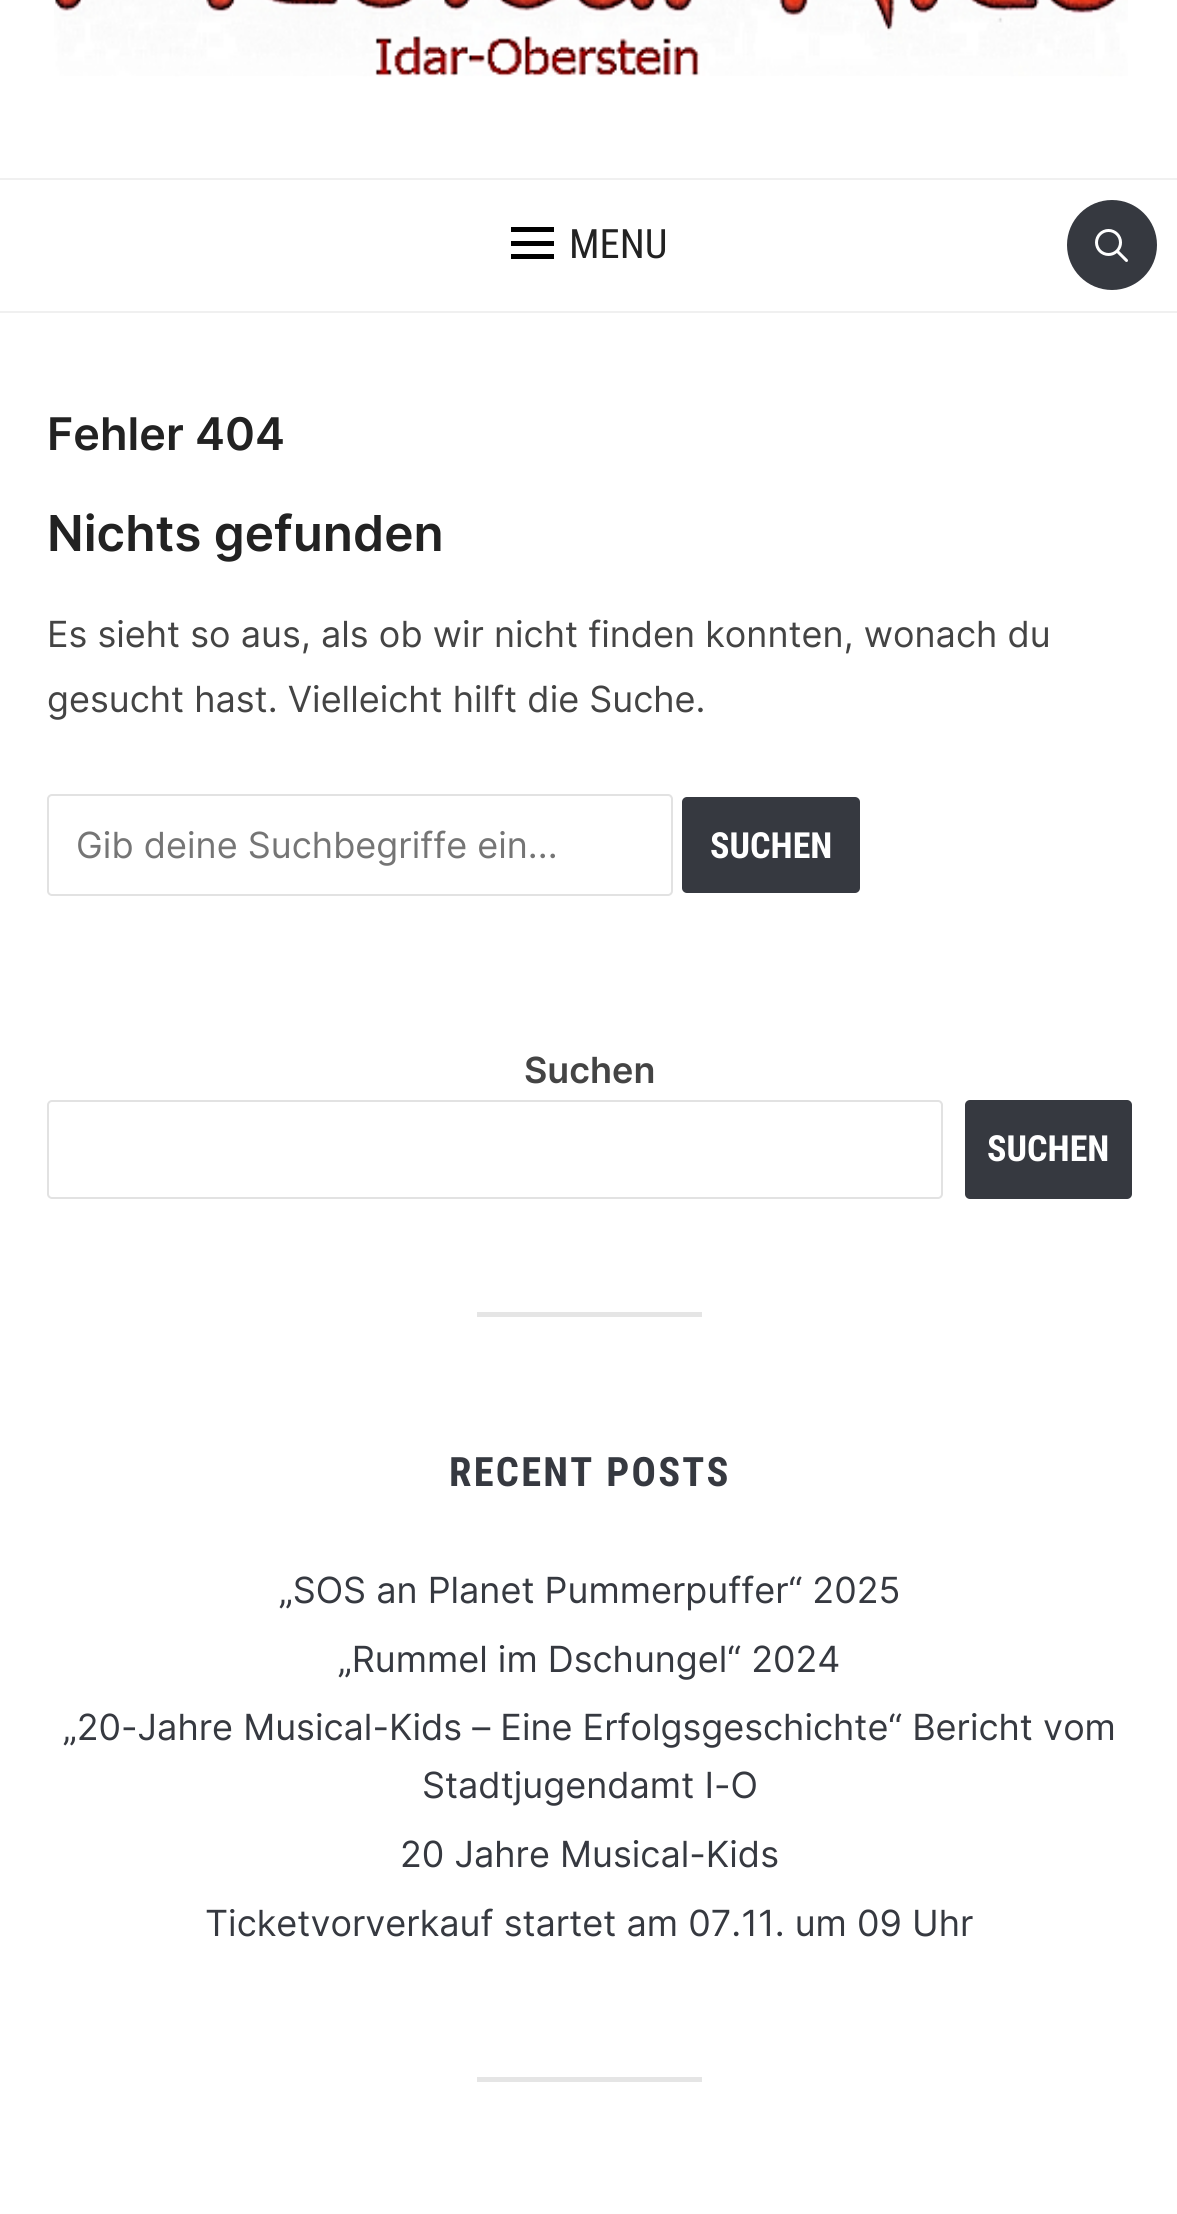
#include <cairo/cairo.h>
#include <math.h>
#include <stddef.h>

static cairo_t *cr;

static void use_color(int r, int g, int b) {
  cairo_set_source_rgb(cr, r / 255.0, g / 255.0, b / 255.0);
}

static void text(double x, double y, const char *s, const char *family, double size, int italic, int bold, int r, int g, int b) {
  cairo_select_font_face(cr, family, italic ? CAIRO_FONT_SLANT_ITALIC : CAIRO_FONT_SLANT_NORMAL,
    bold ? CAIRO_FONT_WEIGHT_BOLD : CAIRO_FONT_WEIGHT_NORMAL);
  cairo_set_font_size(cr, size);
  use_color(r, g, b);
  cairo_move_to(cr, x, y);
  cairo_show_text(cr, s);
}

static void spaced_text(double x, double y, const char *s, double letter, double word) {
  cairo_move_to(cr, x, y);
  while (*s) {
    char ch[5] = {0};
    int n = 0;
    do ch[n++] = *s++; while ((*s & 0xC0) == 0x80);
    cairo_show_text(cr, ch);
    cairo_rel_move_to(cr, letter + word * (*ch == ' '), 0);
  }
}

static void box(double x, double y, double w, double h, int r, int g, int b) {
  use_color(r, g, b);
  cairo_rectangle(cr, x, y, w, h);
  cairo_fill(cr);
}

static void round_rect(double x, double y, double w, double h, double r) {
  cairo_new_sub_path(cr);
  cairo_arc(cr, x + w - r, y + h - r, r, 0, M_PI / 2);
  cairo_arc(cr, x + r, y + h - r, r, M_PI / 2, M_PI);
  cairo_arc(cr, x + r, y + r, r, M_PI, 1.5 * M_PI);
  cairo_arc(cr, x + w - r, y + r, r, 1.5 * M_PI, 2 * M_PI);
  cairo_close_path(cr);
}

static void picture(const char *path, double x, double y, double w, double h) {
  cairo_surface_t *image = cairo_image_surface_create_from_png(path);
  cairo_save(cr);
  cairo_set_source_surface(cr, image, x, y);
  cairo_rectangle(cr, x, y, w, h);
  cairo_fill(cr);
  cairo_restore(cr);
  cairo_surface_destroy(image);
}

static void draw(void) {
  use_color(255, 255, 255);
  cairo_paint(cr);
  picture("img_01.png", 54, 0, 1074, 77);
  box(0, 178, 1177, 2, 240, 240, 240);
  box(0, 311, 1177, 2, 240, 240, 240);
  box(511, 227, 43, 5, 0, 0, 0);
  box(511, 241, 43, 5, 0, 0, 0);
  box(511, 254, 43, 5, 0, 0, 0);
  use_color(54, 57, 64);
  cairo_arc(cr, 1112, 245, 45, 0, 2 * M_PI);
  cairo_fill(cr);
  picture("img_02.png", 1095, 229, 33, 33);
  round_rect(48, 795, 624, 100, 4);
  use_color(226, 226, 226);
  cairo_stroke(cr);
  use_color(54, 57, 64);
  round_rect(682, 797, 178, 96, 5);
  cairo_fill(cr);
  round_rect(48, 1101, 894, 97, 4);
  use_color(226, 226, 226);
  cairo_stroke(cr);
  use_color(54, 57, 64);
  round_rect(965, 1100, 167, 99, 5);
  cairo_fill(cr);
  box(477, 1312, 225, 5, 229, 229, 229);
  box(477, 2077, 225, 5, 229, 229, 229);
  text(569, 258, "MENU", "Roboto Condensed", 40.5, 0, 0, 34, 34, 34);
  text(47, 450, "Fehler 404", "Inter SemiBold", 45, 0, 0, 34, 34, 34);
  text(47, 551, "Nichts gefunden", "Inter SemiBold", 49.5, 0, 0, 34, 34, 34);
  text(47, 647, "Es sieht so aus, als ob wir nicht finden konnten, wonach du", "Inter", 36, 0, 0, 68, 68, 68);
  text(47, 712, "gesucht hast. Vielleicht hilft die Suche.", "Inter", 36, 0, 0, 68, 68, 68);
  text(76, 858, "Gib deine Suchbegriffe ein...", "Inter", 36, 0, 0, 117, 117, 117);
  text(710, 858, "SUCHEN", "Roboto Condensed", 36, 0, 1, 255, 255, 255);
  text(524, 1083, "Suchen", "Inter SemiBold", 36, 0, 0, 68, 68, 68);
  text(987, 1161, "SUCHEN", "Roboto Condensed", 36, 0, 1, 255, 255, 255);
  cairo_set_font_size(cr, 40.5);
  use_color(54, 57, 64);
  spaced_text(449, 1486, "RECENT POSTS", 2.25, 0);
  text(279, 1603, "„SOS an Planet Pummerpuffer“ 2025", "Inter", 36, 0, 0, 54, 57, 64);
  text(338, 1672, "„Rummel im Dschungel“ 2024", "Inter", 36, 0, 0, 54, 57, 64);
  text(63, 1740, "„20-Jahre Musical-Kids – Eine Erfolgsgeschichte“ Bericht vom", "Inter", 36, 0, 0, 54, 57, 64);
  text(422, 1798, "Stadtjugendamt I-O", "Inter", 36, 0, 0, 54, 57, 64);
  text(400, 1867, "20 Jahre Musical-Kids", "Inter", 36, 0, 0, 54, 57, 64);
  text(205, 1936, "Ticketvorverkauf startet am 07.11. um 09 Uhr", "Inter", 36, 0, 0, 54, 57, 64);
}

int main(void) {
  cairo_surface_t *surface = cairo_image_surface_create(CAIRO_FORMAT_RGB24, 1177, 2214);
  cr = cairo_create(surface);
  cairo_font_options_t *options = cairo_font_options_create();
  cairo_font_options_set_hint_metrics(options, CAIRO_HINT_METRICS_OFF);
  cairo_font_options_set_hint_style(options, CAIRO_HINT_STYLE_NONE);
  cairo_set_font_options(cr, options);
  cairo_set_miter_limit(cr, 4);
  draw();
  cairo_surface_write_to_png(surface, "out.png");
  cairo_font_options_destroy(options);
  cairo_destroy(cr);
  cairo_surface_destroy(surface);
  return 0;
}
